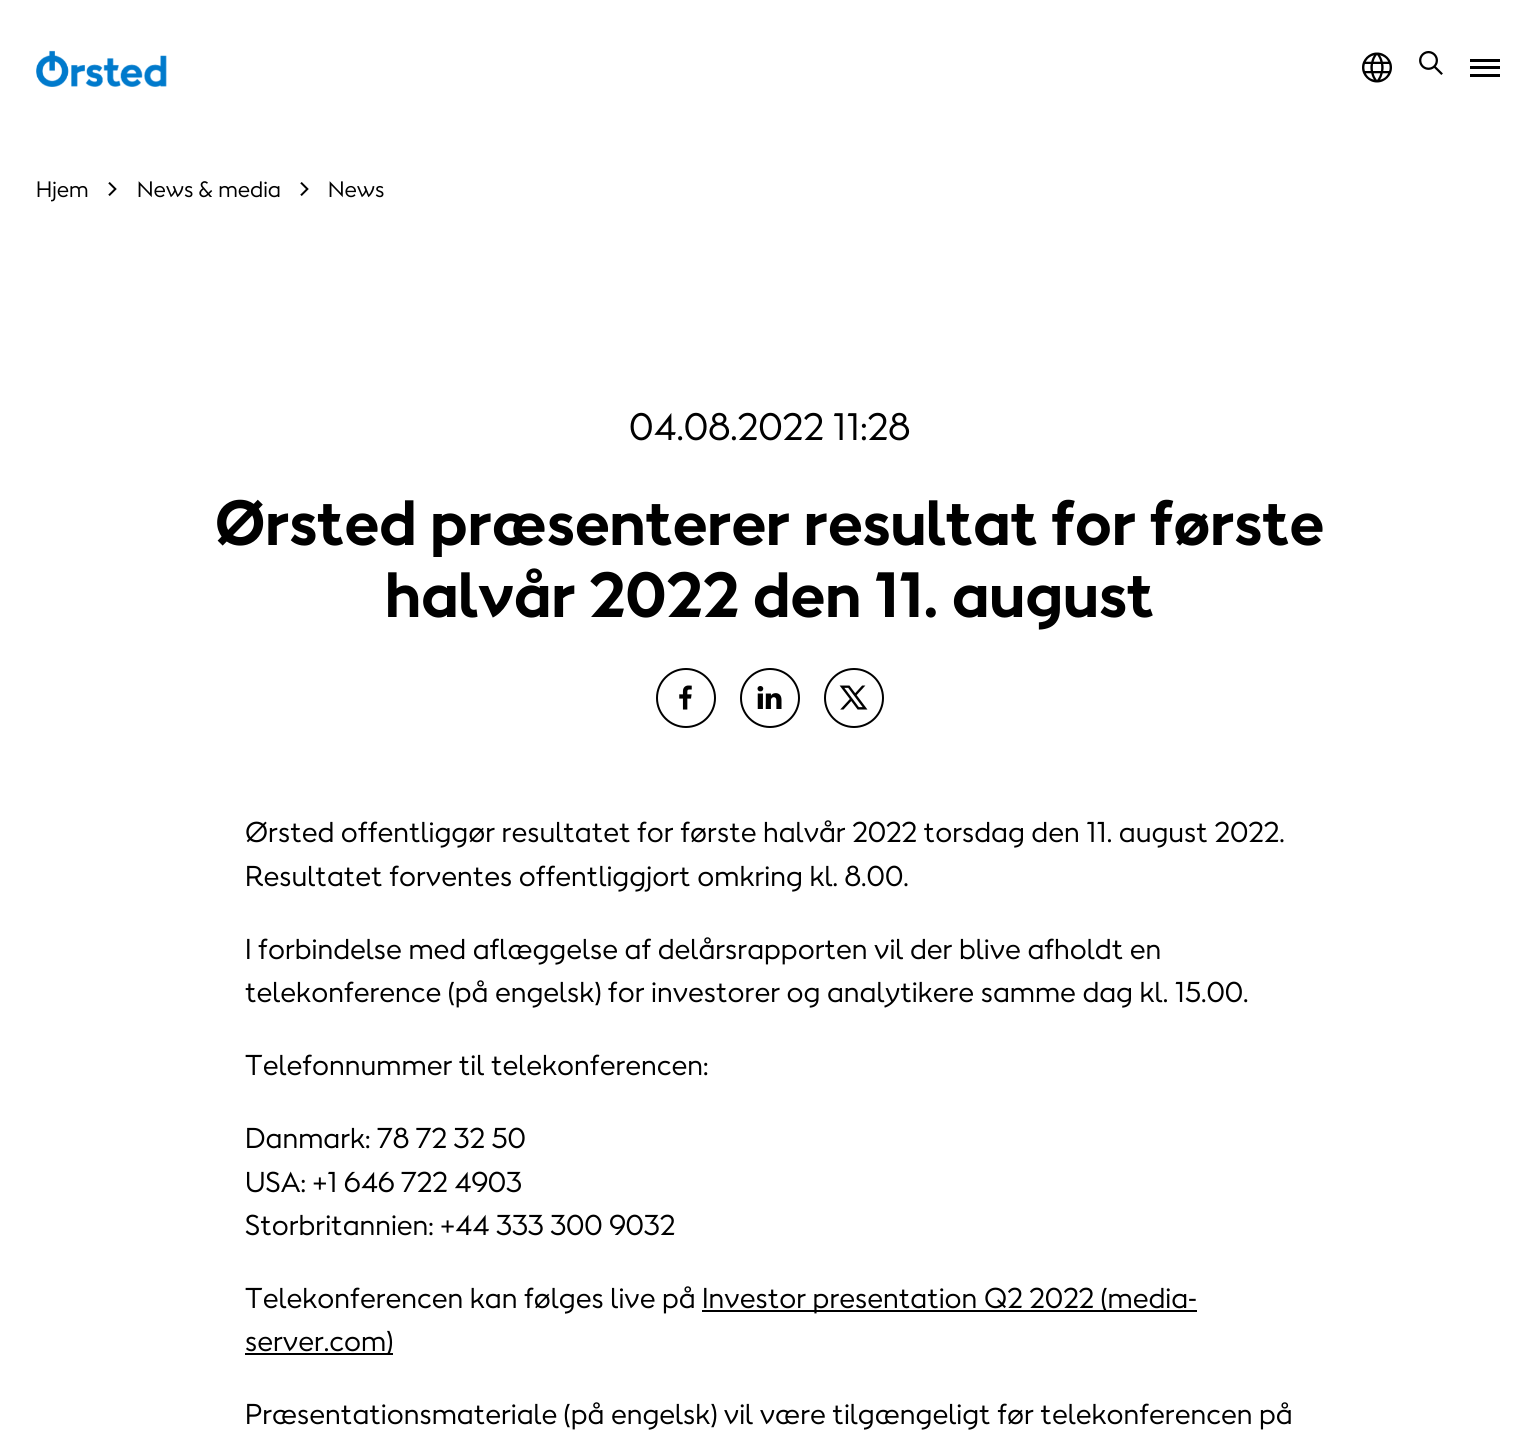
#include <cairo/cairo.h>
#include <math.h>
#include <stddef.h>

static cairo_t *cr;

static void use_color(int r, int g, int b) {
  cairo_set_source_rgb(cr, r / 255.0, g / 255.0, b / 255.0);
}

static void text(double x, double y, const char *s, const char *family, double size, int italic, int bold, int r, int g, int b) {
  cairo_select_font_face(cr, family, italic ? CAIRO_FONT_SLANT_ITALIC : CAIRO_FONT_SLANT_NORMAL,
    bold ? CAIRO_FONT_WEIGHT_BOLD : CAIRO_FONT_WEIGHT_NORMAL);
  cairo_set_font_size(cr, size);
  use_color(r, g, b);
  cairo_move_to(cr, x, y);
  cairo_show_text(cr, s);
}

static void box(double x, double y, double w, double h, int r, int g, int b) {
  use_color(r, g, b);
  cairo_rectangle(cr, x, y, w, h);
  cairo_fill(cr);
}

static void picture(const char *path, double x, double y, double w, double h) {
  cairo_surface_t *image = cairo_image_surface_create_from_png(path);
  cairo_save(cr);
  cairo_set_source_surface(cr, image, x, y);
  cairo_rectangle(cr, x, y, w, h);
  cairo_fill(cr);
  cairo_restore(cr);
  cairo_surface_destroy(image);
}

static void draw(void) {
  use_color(255, 255, 255);
  cairo_paint(cr);
  picture("img_01.png", 36, 50, 131, 37);
  picture("img_02.png", 1362, 52, 30, 31);
  picture("img_03.png", 1419, 51, 24, 24);
  box(1470, 59, 30, 3, 0, 0, 0);
  box(1470, 66, 30, 3, 0, 0, 0);
  box(1470, 74, 30, 3, 0, 0, 0);
  picture("img_04.png", 108, 182, 9, 14);
  picture("img_04.png", 300, 182, 9, 14);
  cairo_arc(cr, 686, 698, 29, 0, 2 * M_PI);
  cairo_stroke(cr);
  picture("img_05.png", 679, 685, 13, 25);
  cairo_arc(cr, 770, 698, 29, 0, 2 * M_PI);
  cairo_stroke(cr);
  picture("img_06.png", 757, 686, 25, 23);
  cairo_arc(cr, 854, 698, 29, 0, 2 * M_PI);
  cairo_stroke(cr);
  picture("img_07.png", 839, 685, 29, 25);
  box(702, 1310, 495, 2, 0, 0, 0);
  box(245, 1353, 148, 2, 0, 0, 0);
  text(36, 197, "Hjem", "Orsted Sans", 21, 0, 0, 0, 0, 0);
  text(137, 197, "News & media", "Orsted Sans", 21, 0, 0, 0, 0, 0);
  text(328, 197, "News", "Orsted Sans", 21, 0, 0, 0, 0, 0);
  text(629, 440, "04.08.2022 11:28", "Orsted Sans", 36, 0, 0, 0, 0, 0);
  text(215, 545, "Ørsted præsenterer resultat for første", "Orsted Sans", 60, 0, 1, 0, 0, 0);
  text(385, 617, "halvår 2022 den 11. august", "Orsted Sans", 60, 0, 1, 0, 0, 0);
  text(245, 842, "Ørsted offentliggør resultatet for første halvår 2022 torsdag den 11. august 2022.", "Orsted Sans", 27, 0, 0, 0, 0, 0);
  text(245, 886, "Resultatet forventes offentliggjort omkring kl. 8.00.", "Orsted Sans", 27, 0, 0, 0, 0, 0);
  text(245, 959, "I forbindelse med aflæggelse af delårsrapporten vil der blive afholdt en", "Orsted Sans", 27, 0, 0, 0, 0, 0);
  text(245, 1002, "telekonference (på engelsk) for investorer og analytikere samme dag kl. 15.00.", "Orsted Sans", 27, 0, 0, 0, 0, 0);
  text(245, 1075, "Telefonnummer til telekonferencen:", "Orsted Sans", 27, 0, 0, 0, 0, 0);
  text(245, 1148, "Danmark: 78 72 32 50", "Orsted Sans", 27, 0, 0, 0, 0, 0);
  text(245, 1192, "USA: +1 646 722 4903", "Orsted Sans", 27, 0, 0, 0, 0, 0);
  text(245, 1235, "Storbritannien: +44 333 300 9032", "Orsted Sans", 27, 0, 0, 0, 0, 0);
  text(245, 1308, "Telekonferencen kan følges live på", "Orsted Sans", 27, 0, 0, 0, 0, 0);
  text(702, 1308, "Investor presentation Q2 2022 (media-", "Orsted Sans", 27, 0, 0, 0, 0, 0);
  text(245, 1351, "server.com)", "Orsted Sans", 27, 0, 0, 0, 0, 0);
  text(245, 1424, "Præsentationsmateriale (på engelsk) vil være tilgængeligt før telekonferencen på", "Orsted Sans", 27, 0, 0, 0, 0, 0);
}

int main(void) {
  cairo_surface_t *surface = cairo_image_surface_create(CAIRO_FORMAT_RGB24, 1539, 1442);
  cr = cairo_create(surface);
  cairo_font_options_t *options = cairo_font_options_create();
  cairo_font_options_set_hint_metrics(options, CAIRO_HINT_METRICS_OFF);
  cairo_font_options_set_hint_style(options, CAIRO_HINT_STYLE_NONE);
  cairo_set_font_options(cr, options);
  cairo_set_miter_limit(cr, 4);
  draw();
  cairo_surface_write_to_png(surface, "out.png");
  cairo_font_options_destroy(options);
  cairo_destroy(cr);
  cairo_surface_destroy(surface);
  return 0;
}
